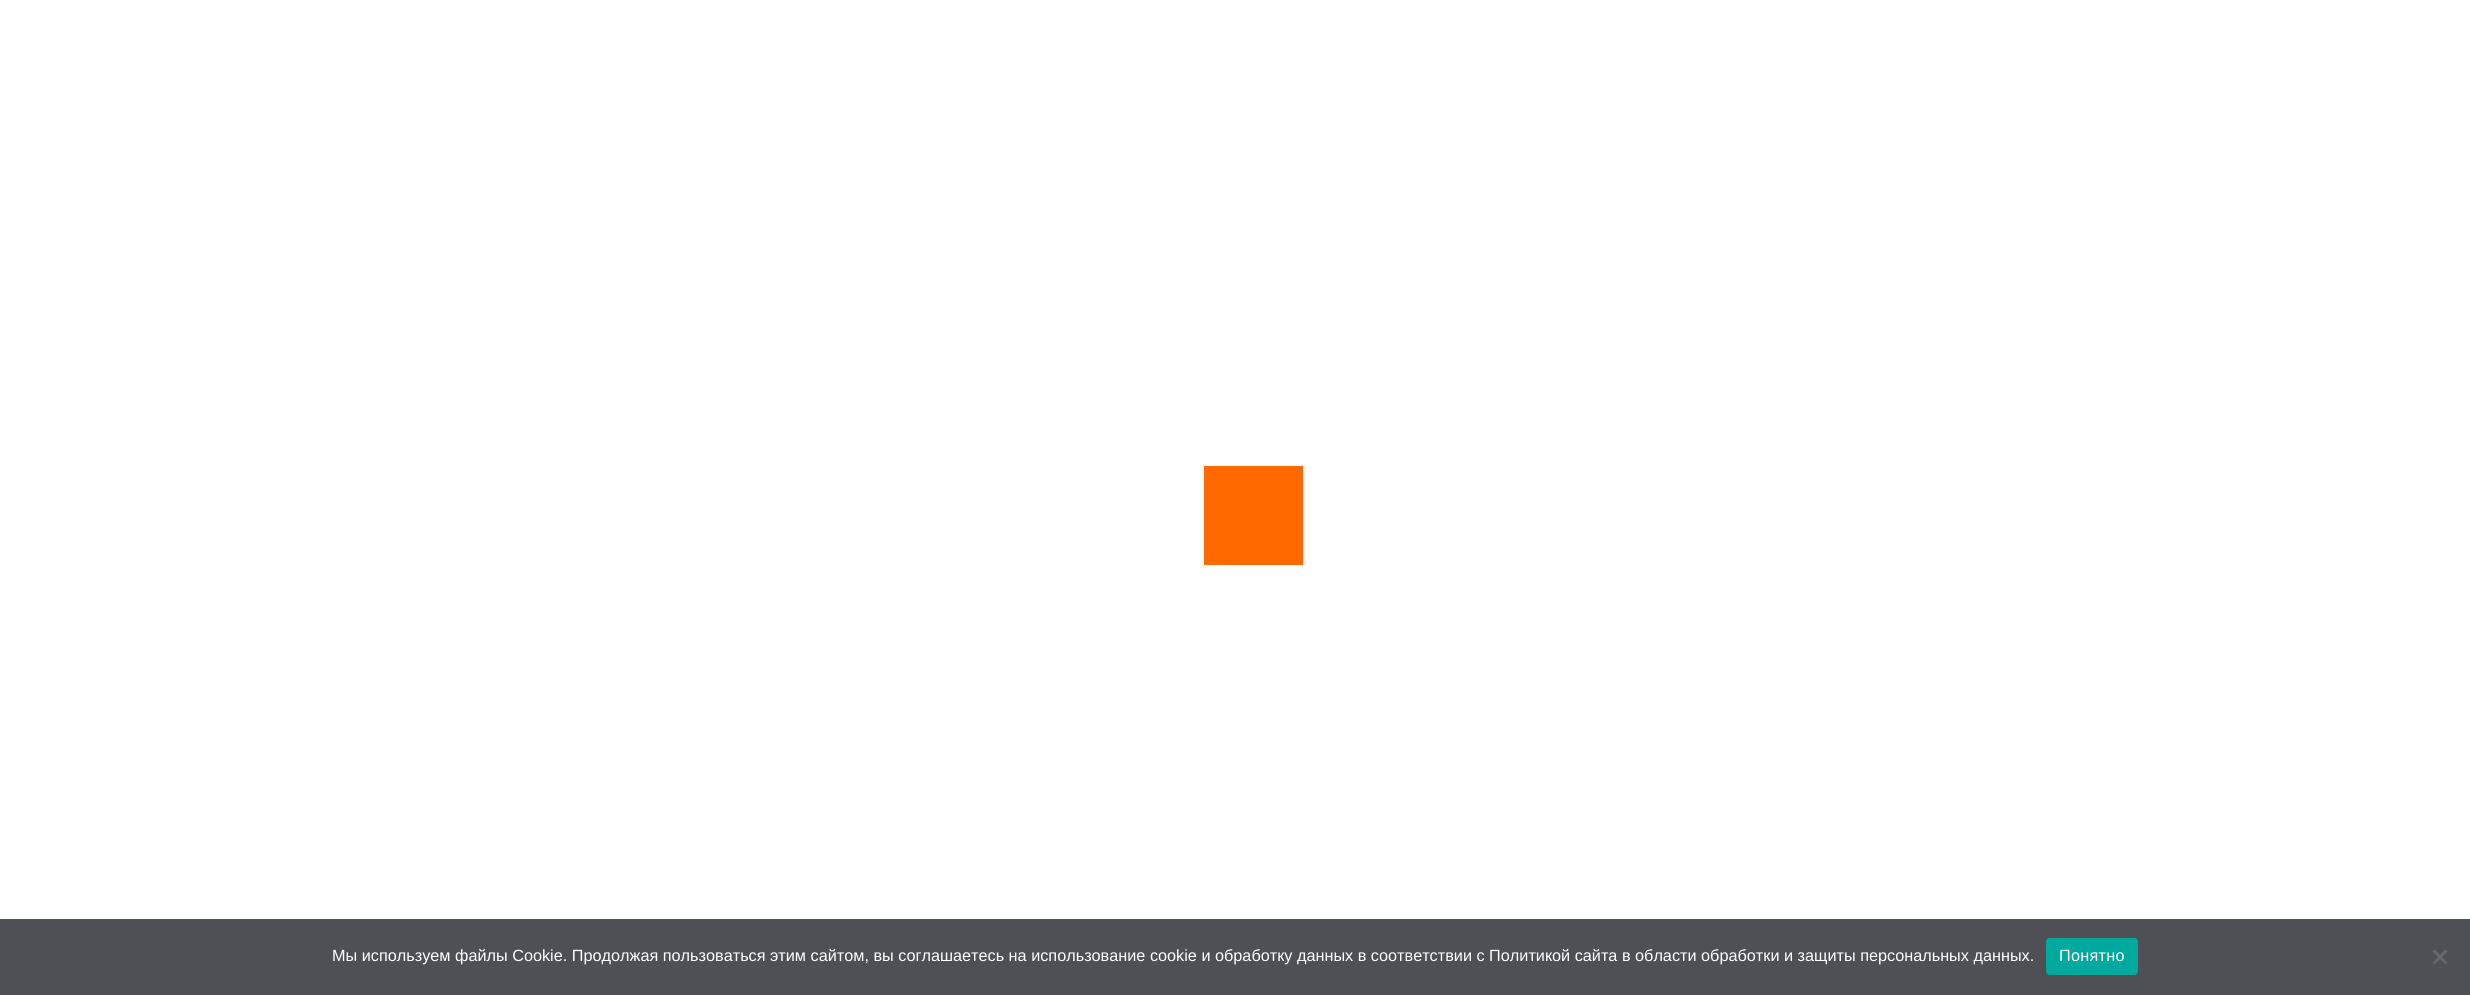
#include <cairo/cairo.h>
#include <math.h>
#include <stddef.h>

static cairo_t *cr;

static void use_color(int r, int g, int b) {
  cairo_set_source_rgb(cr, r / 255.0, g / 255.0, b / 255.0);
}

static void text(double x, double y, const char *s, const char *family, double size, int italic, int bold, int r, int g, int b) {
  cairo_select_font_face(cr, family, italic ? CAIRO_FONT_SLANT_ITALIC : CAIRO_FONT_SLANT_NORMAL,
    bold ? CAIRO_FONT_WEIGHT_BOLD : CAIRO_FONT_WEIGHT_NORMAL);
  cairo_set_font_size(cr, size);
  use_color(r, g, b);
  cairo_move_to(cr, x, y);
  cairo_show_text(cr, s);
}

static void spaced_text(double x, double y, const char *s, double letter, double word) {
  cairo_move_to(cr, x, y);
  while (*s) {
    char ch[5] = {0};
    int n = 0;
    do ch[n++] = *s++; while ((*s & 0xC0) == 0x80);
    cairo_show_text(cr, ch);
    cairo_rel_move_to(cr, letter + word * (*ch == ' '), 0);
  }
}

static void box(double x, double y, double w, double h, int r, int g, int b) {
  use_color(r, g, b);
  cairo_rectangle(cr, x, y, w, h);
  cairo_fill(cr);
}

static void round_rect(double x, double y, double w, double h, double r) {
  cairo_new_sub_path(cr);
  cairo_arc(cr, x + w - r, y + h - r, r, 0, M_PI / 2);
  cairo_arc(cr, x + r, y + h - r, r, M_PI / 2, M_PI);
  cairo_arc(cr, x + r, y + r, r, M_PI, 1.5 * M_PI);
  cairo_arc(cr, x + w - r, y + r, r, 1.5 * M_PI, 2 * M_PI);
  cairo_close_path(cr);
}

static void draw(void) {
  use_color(254, 254, 254);
  cairo_paint(cr);
  box(1204, 466, 99, 33, 255, 105, 0);
  box(1204, 499, 99, 34, 255, 105, 0);
  box(1204, 533, 99, 32, 255, 105, 0);
  box(0, 919, 2470, 76, 79, 79, 86);
  use_color(0, 169, 157);
  round_rect(2046, 938, 92, 37, 4);
  cairo_fill(cr);
  use_color(104, 104, 107);
  cairo_new_path(cr);
  cairo_move_to(cr, 2445.5, 949.5);
  cairo_line_to(cr, 2447.5, 951.5);
  cairo_line_to(cr, 2434.5, 964.5);
  cairo_line_to(cr, 2432.5, 963);
  cairo_close_path(cr);
  cairo_fill(cr);
  cairo_new_path(cr);
  cairo_move_to(cr, 2432.5, 951.5);
  cairo_line_to(cr, 2434.5, 949.5);
  cairo_line_to(cr, 2447.5, 963);
  cairo_line_to(cr, 2445.5, 964.5);
  cairo_close_path(cr);
  cairo_fill(cr);
  text(332, 961, "Мы используем файлы Cookie. Продолжая пользоваться этим сайтом, вы соглашаетесь на использование cookie и обработку данных в соответствии с Политикой сайта в области обработки и защиты персональных данных.", "Liberation Sans", 16.25, 0, 0, 255, 255, 255);
  spaced_text(2059, 961, "Понятно", 0.25, 0);
}

int main(void) {
  cairo_surface_t *surface = cairo_image_surface_create(CAIRO_FORMAT_RGB24, 2470, 995);
  cr = cairo_create(surface);
  cairo_font_options_t *options = cairo_font_options_create();
  cairo_font_options_set_hint_metrics(options, CAIRO_HINT_METRICS_OFF);
  cairo_font_options_set_hint_style(options, CAIRO_HINT_STYLE_NONE);
  cairo_set_font_options(cr, options);
  cairo_set_miter_limit(cr, 4);
  draw();
  cairo_surface_write_to_png(surface, "out.png");
  cairo_font_options_destroy(options);
  cairo_destroy(cr);
  cairo_surface_destroy(surface);
  return 0;
}
